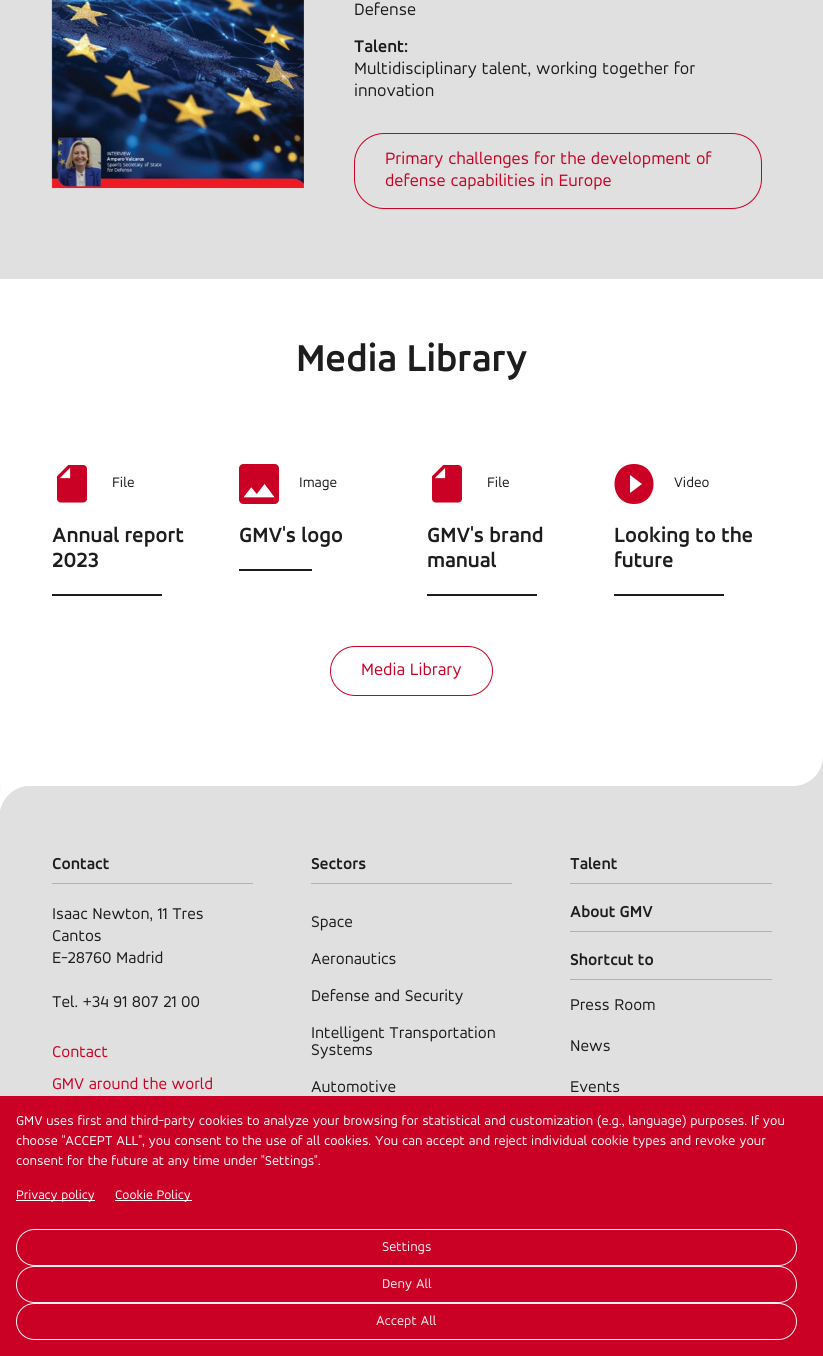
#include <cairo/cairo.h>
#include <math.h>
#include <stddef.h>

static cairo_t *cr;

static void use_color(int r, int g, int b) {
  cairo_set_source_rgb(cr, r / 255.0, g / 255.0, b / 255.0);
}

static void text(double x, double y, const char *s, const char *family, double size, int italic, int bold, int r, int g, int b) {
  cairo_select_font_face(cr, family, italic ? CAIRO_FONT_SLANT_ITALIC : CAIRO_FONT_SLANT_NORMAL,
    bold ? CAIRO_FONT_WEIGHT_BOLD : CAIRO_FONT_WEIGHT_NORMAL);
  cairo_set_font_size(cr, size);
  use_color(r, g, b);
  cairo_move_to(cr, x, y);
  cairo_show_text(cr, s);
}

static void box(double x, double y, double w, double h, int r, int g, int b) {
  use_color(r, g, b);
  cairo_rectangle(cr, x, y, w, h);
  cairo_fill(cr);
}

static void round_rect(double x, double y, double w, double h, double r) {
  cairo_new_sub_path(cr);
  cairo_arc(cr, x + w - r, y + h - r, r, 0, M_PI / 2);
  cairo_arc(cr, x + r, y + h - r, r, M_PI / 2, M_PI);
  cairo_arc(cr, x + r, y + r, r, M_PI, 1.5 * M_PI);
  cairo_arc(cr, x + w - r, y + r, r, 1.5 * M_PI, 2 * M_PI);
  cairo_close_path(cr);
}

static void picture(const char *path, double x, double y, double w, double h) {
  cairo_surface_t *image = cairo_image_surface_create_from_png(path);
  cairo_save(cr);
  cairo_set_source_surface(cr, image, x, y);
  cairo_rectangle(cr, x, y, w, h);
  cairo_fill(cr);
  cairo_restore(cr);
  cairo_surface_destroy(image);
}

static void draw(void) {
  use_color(255, 255, 255);
  cairo_paint(cr);
  box(0, 0, 823, 279, 224, 224, 224);
  picture("img_01.png", 51, 0, 253, 189);
  round_rect(354.5, 133.5, 407, 75, 29.5);
  use_color(202, 0, 36);
  cairo_set_line_width(cr, 1);
  cairo_stroke(cr);
  picture("img_02.png", 57, 465, 30, 38);
  box(52, 594, 110, 2, 29, 29, 29);
  picture("img_03.png", 239, 464, 40, 40);
  box(239, 569, 73, 2, 29, 29, 29);
  picture("img_02.png", 432, 465, 30, 38);
  box(427, 594, 110, 2, 29, 29, 29);
  use_color(202, 0, 36);
  cairo_new_path(cr);
  cairo_move_to(cr, 634, 464);
  cairo_curve_to(cr, 608, 464, 608, 504, 634, 504);
  cairo_curve_to(cr, 660, 504, 660, 464, 634, 464);
  cairo_close_path(cr);
  cairo_move_to(cr, 630, 493);
  cairo_line_to(cr, 630, 475);
  cairo_line_to(cr, 642, 484);
  cairo_close_path(cr);
  cairo_fill(cr);
  box(614, 594, 110, 2, 29, 29, 29);
  round_rect(330.5, 646.5, 162, 49, 24.5);
  use_color(202, 0, 36);
  cairo_stroke(cr);
  box(0, 1096, 823, 260, 202, 0, 36);
  box(16, 1200, 79, 1, 255, 255, 255);
  box(115, 1200, 77, 1, 255, 255, 255);
  round_rect(16.5, 1229.5, 780, 36, 18);
  use_color(252, 242, 244);
  cairo_stroke(cr);
  round_rect(16.5, 1266.5, 780, 36, 18);
  cairo_stroke(cr);
  round_rect(16.5, 1303.5, 780, 36, 18);
  cairo_stroke(cr);
  box(0, 756, 823, 340, 224, 224, 224);
  use_color(255, 255, 255);
  cairo_new_path(cr);
  cairo_move_to(cr, 0, 756);
  cairo_line_to(cr, 823, 756);
  cairo_curve_to(cr, 823, 772.5, 809.5, 786, 793, 786);
  cairo_line_to(cr, 0, 786);
  cairo_close_path(cr);
  cairo_fill(cr);
  cairo_new_path(cr);
  cairo_move_to(cr, 30, 761);
  cairo_curve_to(cr, 13, 761, 0, 774, 0, 791);
  cairo_line_to(cr, 0, 811);
  cairo_curve_to(cr, 3, 797, 15, 786, 30, 786);
  cairo_close_path(cr);
  cairo_fill(cr);
  use_color(224, 224, 224);
  cairo_new_path(cr);
  cairo_move_to(cr, 30, 786);
  cairo_line_to(cr, 30, 836);
  cairo_line_to(cr, 0, 836);
  cairo_line_to(cr, 0, 816);
  cairo_curve_to(cr, 0, 799.5, 13.5, 786, 30, 786);
  cairo_close_path(cr);
  cairo_fill(cr);
  box(52, 883, 201, 1, 177, 177, 176);
  box(311, 883, 201, 1, 177, 177, 176);
  box(570, 883, 202, 1, 177, 177, 176);
  box(570, 931, 202, 1, 177, 177, 176);
  box(570, 979, 202, 1, 177, 177, 176);
  text(354, 15, "Defense", "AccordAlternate", 18, 0, 0, 29, 29, 29);
  text(354, 52, "Talent:", "AccordAlternate", 18, 0, 1, 29, 29, 29);
  text(354, 74, "Multidisciplinary talent, working together for", "AccordAlternate", 18, 0, 0, 29, 29, 29);
  text(354, 96, "innovation", "AccordAlternate", 18, 0, 0, 29, 29, 29);
  text(385, 164, "Primary challenges for the development of", "AccordAlternate", 18, 0, 0, 202, 0, 36);
  text(385, 186, "defense capabilities in Europe", "AccordAlternate", 18, 0, 0, 202, 0, 36);
  text(296, 371, "Media Library", "AccordAlternate", 40, 0, 1, 29, 29, 29);
  text(112, 487, "File", "AccordAlternate", 15, 0, 0, 29, 29, 29);
  text(52, 542, "Annual report", "AccordAlternate", 22, 0, 1, 29, 29, 29);
  text(52, 567, "2023", "AccordAlternate", 22, 0, 1, 29, 29, 29);
  text(299, 487, "Image", "AccordAlternate", 15, 0, 0, 29, 29, 29);
  text(239, 542, "GMV's logo", "AccordAlternate", 22, 0, 1, 29, 29, 29);
  text(487, 487, "File", "AccordAlternate", 15, 0, 0, 29, 29, 29);
  text(427, 542, "GMV's brand", "AccordAlternate", 22, 0, 1, 29, 29, 29);
  text(427, 567, "manual", "AccordAlternate", 22, 0, 1, 29, 29, 29);
  text(674, 487, "Video", "AccordAlternate", 15, 0, 0, 29, 29, 29);
  text(614, 542, "Looking to the", "AccordAlternate", 22, 0, 1, 29, 29, 29);
  text(614, 567, "future", "AccordAlternate", 22, 0, 1, 29, 29, 29);
  text(361, 675, "Media Library", "AccordAlternate", 18, 0, 0, 202, 0, 36);
  text(16, 1125, "GMV uses first and third-party cookies to analyze your browsing for statistical and customization (e.g., language) purposes. If you", "AccordAlternate", 14, 0, 0, 255, 255, 255);
  text(16, 1145, "choose \"ACCEPT ALL\", you consent to the use of all cookies. You can accept and reject individual cookie types and revoke your", "AccordAlternate", 14, 0, 0, 255, 255, 255);
  text(16, 1165, "consent for the future at any time under \"Settings\".", "AccordAlternate", 14, 0, 0, 255, 255, 255);
  text(16, 1199, "Privacy policy", "AccordAlternate", 13.5, 0, 0, 255, 255, 255);
  text(115, 1199, "Cookie Policy", "AccordAlternate", 13.5, 0, 0, 255, 255, 255);
  text(382, 1251, "Settings", "AccordAlternate", 14, 0, 0, 252, 242, 244);
  text(382, 1288, "Deny All", "AccordAlternate", 14, 0, 0, 252, 242, 244);
  text(376, 1325, "Accept All", "AccordAlternate", 14, 0, 0, 252, 242, 244);
  text(52, 869, "Contact", "AccordAlternate", 17, 0, 1, 29, 29, 29);
  text(52, 919, "Isaac Newton, 11 Tres", "AccordAlternate", 17, 0, 0, 29, 29, 29);
  text(52, 941, "Cantos", "AccordAlternate", 17, 0, 0, 29, 29, 29);
  text(52, 963, "E-28760 Madrid", "AccordAlternate", 17, 0, 0, 29, 29, 29);
  text(52, 1007, "Tel. +34 91 807 21 00", "AccordAlternate", 17, 0, 0, 29, 29, 29);
  text(52, 1057, "Contact", "AccordAlternate", 17, 0, 0, 202, 0, 36);
  text(52, 1089, "GMV around the world", "AccordAlternate", 17, 0, 0, 202, 0, 36);
  text(311, 869, "Sectors", "AccordAlternate", 17, 0, 1, 29, 29, 29);
  text(311, 927, "Space", "AccordAlternate", 17, 0, 0, 29, 29, 29);
  text(311, 964, "Aeronautics", "AccordAlternate", 17, 0, 0, 29, 29, 29);
  text(311, 1001, "Defense and Security", "AccordAlternate", 17, 0, 0, 29, 29, 29);
  text(311, 1038, "Intelligent Transportation", "AccordAlternate", 17, 0, 0, 29, 29, 29);
  text(311, 1055, "Systems", "AccordAlternate", 17, 0, 0, 29, 29, 29);
  text(311, 1092, "Automotive", "AccordAlternate", 17, 0, 0, 29, 29, 29);
  text(570, 869, "Talent", "AccordAlternate", 17, 0, 1, 29, 29, 29);
  text(570, 917, "About GMV", "AccordAlternate", 17, 0, 1, 29, 29, 29);
  text(570, 965, "Shortcut to", "AccordAlternate", 17, 0, 1, 29, 29, 29);
  text(570, 1010, "Press Room", "AccordAlternate", 17, 0, 0, 29, 29, 29);
  text(570, 1051, "News", "AccordAlternate", 17, 0, 0, 29, 29, 29);
  text(570, 1092, "Events", "AccordAlternate", 17, 0, 0, 29, 29, 29);
}

int main(void) {
  cairo_surface_t *surface = cairo_image_surface_create(CAIRO_FORMAT_RGB24, 823, 1356);
  cr = cairo_create(surface);
  cairo_font_options_t *options = cairo_font_options_create();
  cairo_font_options_set_hint_metrics(options, CAIRO_HINT_METRICS_OFF);
  cairo_font_options_set_hint_style(options, CAIRO_HINT_STYLE_NONE);
  cairo_set_font_options(cr, options);
  cairo_set_miter_limit(cr, 4);
  draw();
  cairo_surface_write_to_png(surface, "out.png");
  cairo_font_options_destroy(options);
  cairo_destroy(cr);
  cairo_surface_destroy(surface);
  return 0;
}
